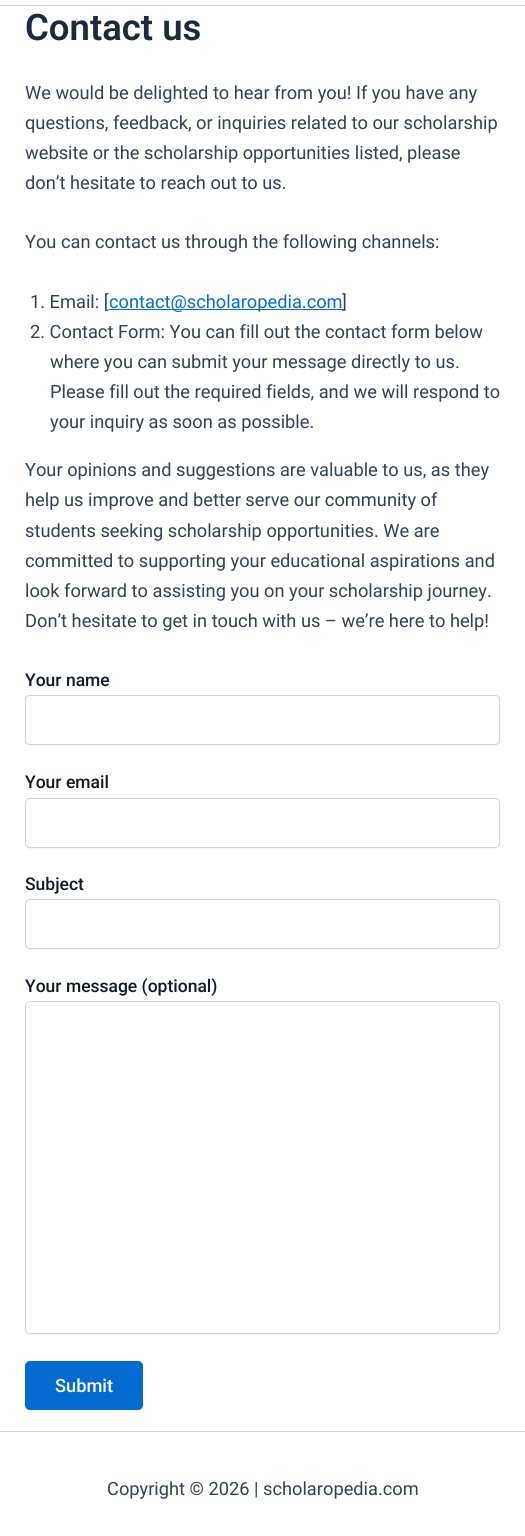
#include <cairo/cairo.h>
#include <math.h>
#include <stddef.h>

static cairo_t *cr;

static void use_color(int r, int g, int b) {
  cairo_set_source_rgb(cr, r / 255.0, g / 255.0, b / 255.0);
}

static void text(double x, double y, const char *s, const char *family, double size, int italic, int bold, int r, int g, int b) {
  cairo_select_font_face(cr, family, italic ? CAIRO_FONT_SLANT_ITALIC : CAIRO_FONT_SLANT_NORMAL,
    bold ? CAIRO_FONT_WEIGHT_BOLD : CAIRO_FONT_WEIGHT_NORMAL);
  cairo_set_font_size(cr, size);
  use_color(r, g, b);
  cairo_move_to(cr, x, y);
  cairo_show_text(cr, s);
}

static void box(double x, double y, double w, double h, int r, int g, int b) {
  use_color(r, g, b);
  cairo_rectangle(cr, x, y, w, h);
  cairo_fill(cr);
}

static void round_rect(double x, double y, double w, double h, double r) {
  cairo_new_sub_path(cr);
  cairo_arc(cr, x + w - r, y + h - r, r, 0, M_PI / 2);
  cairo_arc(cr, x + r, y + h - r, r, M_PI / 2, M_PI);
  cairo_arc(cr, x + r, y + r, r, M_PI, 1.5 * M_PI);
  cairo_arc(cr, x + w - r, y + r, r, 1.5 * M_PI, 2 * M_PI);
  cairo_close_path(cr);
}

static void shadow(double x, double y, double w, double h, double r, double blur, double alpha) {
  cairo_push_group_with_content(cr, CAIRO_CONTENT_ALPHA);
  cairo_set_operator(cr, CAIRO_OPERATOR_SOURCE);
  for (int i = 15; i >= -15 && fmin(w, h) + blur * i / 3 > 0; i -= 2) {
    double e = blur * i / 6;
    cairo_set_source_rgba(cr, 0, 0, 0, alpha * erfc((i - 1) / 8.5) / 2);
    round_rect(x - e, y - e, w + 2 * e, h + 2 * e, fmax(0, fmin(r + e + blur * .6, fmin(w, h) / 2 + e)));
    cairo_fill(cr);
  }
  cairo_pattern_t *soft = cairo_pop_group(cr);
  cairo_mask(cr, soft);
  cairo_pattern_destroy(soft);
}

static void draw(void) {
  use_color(255, 255, 255);
  cairo_paint(cr);
  box(0, 5, 525, 1, 209, 213, 219);
  box(109, 309, 234, 1, 4, 107, 210);
  use_color(0, 0, 0);
  shadow(25, 696, 475, 50, 5, 1, 0.05);
  use_color(255, 255, 255);
  round_rect(25.5, 695.5, 474, 49, 4.5);
  cairo_fill_preserve(cr);
  use_color(209, 213, 219);
  cairo_set_line_width(cr, 1);
  cairo_stroke(cr);
  use_color(0, 0, 0);
  shadow(25, 799, 475, 50, 5, 1, 0.05);
  use_color(255, 255, 255);
  round_rect(25.5, 798.5, 474, 49, 4.5);
  cairo_fill_preserve(cr);
  use_color(209, 213, 219);
  cairo_stroke(cr);
  use_color(0, 0, 0);
  shadow(25, 900, 475, 50, 5, 1, 0.05);
  use_color(255, 255, 255);
  round_rect(25.5, 899.5, 474, 49, 4.5);
  cairo_fill_preserve(cr);
  use_color(209, 213, 219);
  cairo_stroke(cr);
  use_color(0, 0, 0);
  shadow(25, 1003, 475, 332, 5, 1, 0.05);
  use_color(255, 255, 255);
  round_rect(25.5, 1001.5, 474, 332, 4.5);
  cairo_fill_preserve(cr);
  use_color(209, 213, 219);
  cairo_stroke(cr);
  use_color(0, 0, 0);
  shadow(25, 1363, 118, 48, 5, 1, 0.05);
  use_color(4, 107, 210);
  round_rect(25, 1361, 118, 49, 5);
  cairo_fill(cr);
  box(0, 1431, 525, 1, 209, 213, 219);
  text(25, 40, "Contact us", "Roboto SemiBold", 36.5, 0, 0, 30, 41, 59);
  text(25, 99, "We would be delighted to hear from you! If you have any", "Roboto", 18.25, 0, 0, 51, 65, 85);
  text(25, 129, "questions, feedback, or inquiries related to our scholarship", "Roboto", 18.25, 0, 0, 51, 65, 85);
  text(25, 159, "website or the scholarship opportunities listed, please", "Roboto", 18.25, 0, 0, 51, 65, 85);
  text(25, 189, "don’t hesitate to reach out to us.", "Roboto", 18.25, 0, 0, 51, 65, 85);
  text(25, 248, "You can contact us through the following channels:", "Roboto", 18.25, 0, 0, 51, 65, 85);
  text(30, 308, "1. Email: [", "Roboto", 18.25, 0, 0, 51, 65, 85);
  text(109, 308, "contact@scholaropedia.com", "Roboto", 18.25, 0, 0, 4, 107, 210);
  text(342, 308, "]", "Roboto", 18.25, 0, 0, 51, 65, 85);
  text(30, 338, "2. Contact Form: You can fill out the contact form below", "Roboto", 18.25, 0, 0, 51, 65, 85);
  text(50, 368, "where you can submit your message directly to us.", "Roboto", 18.25, 0, 0, 51, 65, 85);
  text(50, 398, "Please fill out the required fields, and we will respond to", "Roboto", 18.25, 0, 0, 51, 65, 85);
  text(50, 428, "your inquiry as soon as possible.", "Roboto", 18.25, 0, 0, 51, 65, 85);
  text(25, 476, "Your opinions and suggestions are valuable to us, as they", "Roboto", 18.25, 0, 0, 51, 65, 85);
  text(25, 506, "help us improve and better serve our community of", "Roboto", 18.25, 0, 0, 51, 65, 85);
  text(25, 537, "students seeking scholarship opportunities. We are", "Roboto", 18.25, 0, 0, 51, 65, 85);
  text(25, 567, "committed to supporting your educational aspirations and", "Roboto", 18.25, 0, 0, 51, 65, 85);
  text(25, 597, "look forward to assisting you on your scholarship journey.", "Roboto", 18.25, 0, 0, 51, 65, 85);
  text(25, 627, "Don’t hesitate to get in touch with us – we’re here to help!", "Roboto", 18.25, 0, 0, 51, 65, 85);
  text(25, 686, "Your name", "Roboto Medium", 17.5, 0, 0, 17, 24, 39);
  text(25, 788, "Your email", "Roboto Medium", 17.5, 0, 0, 17, 24, 39);
  text(25, 890, "Subject", "Roboto Medium", 17.5, 0, 0, 17, 24, 39);
  text(25, 992, "Your message (optional)", "Roboto Medium", 17.5, 0, 0, 17, 24, 39);
  text(55, 1392, "Submit", "Roboto Medium", 18.25, 0, 0, 255, 255, 255);
  text(107, 1495, "Copyright © 2026 | scholaropedia.com", "Roboto", 18.25, 0, 0, 51, 65, 85);
}

int main(void) {
  cairo_surface_t *surface = cairo_image_surface_create(CAIRO_FORMAT_RGB24, 525, 1536);
  cr = cairo_create(surface);
  cairo_font_options_t *options = cairo_font_options_create();
  cairo_font_options_set_hint_metrics(options, CAIRO_HINT_METRICS_OFF);
  cairo_font_options_set_hint_style(options, CAIRO_HINT_STYLE_NONE);
  cairo_set_font_options(cr, options);
  cairo_set_miter_limit(cr, 4);
  draw();
  cairo_surface_write_to_png(surface, "out.png");
  cairo_font_options_destroy(options);
  cairo_destroy(cr);
  cairo_surface_destroy(surface);
  return 0;
}
